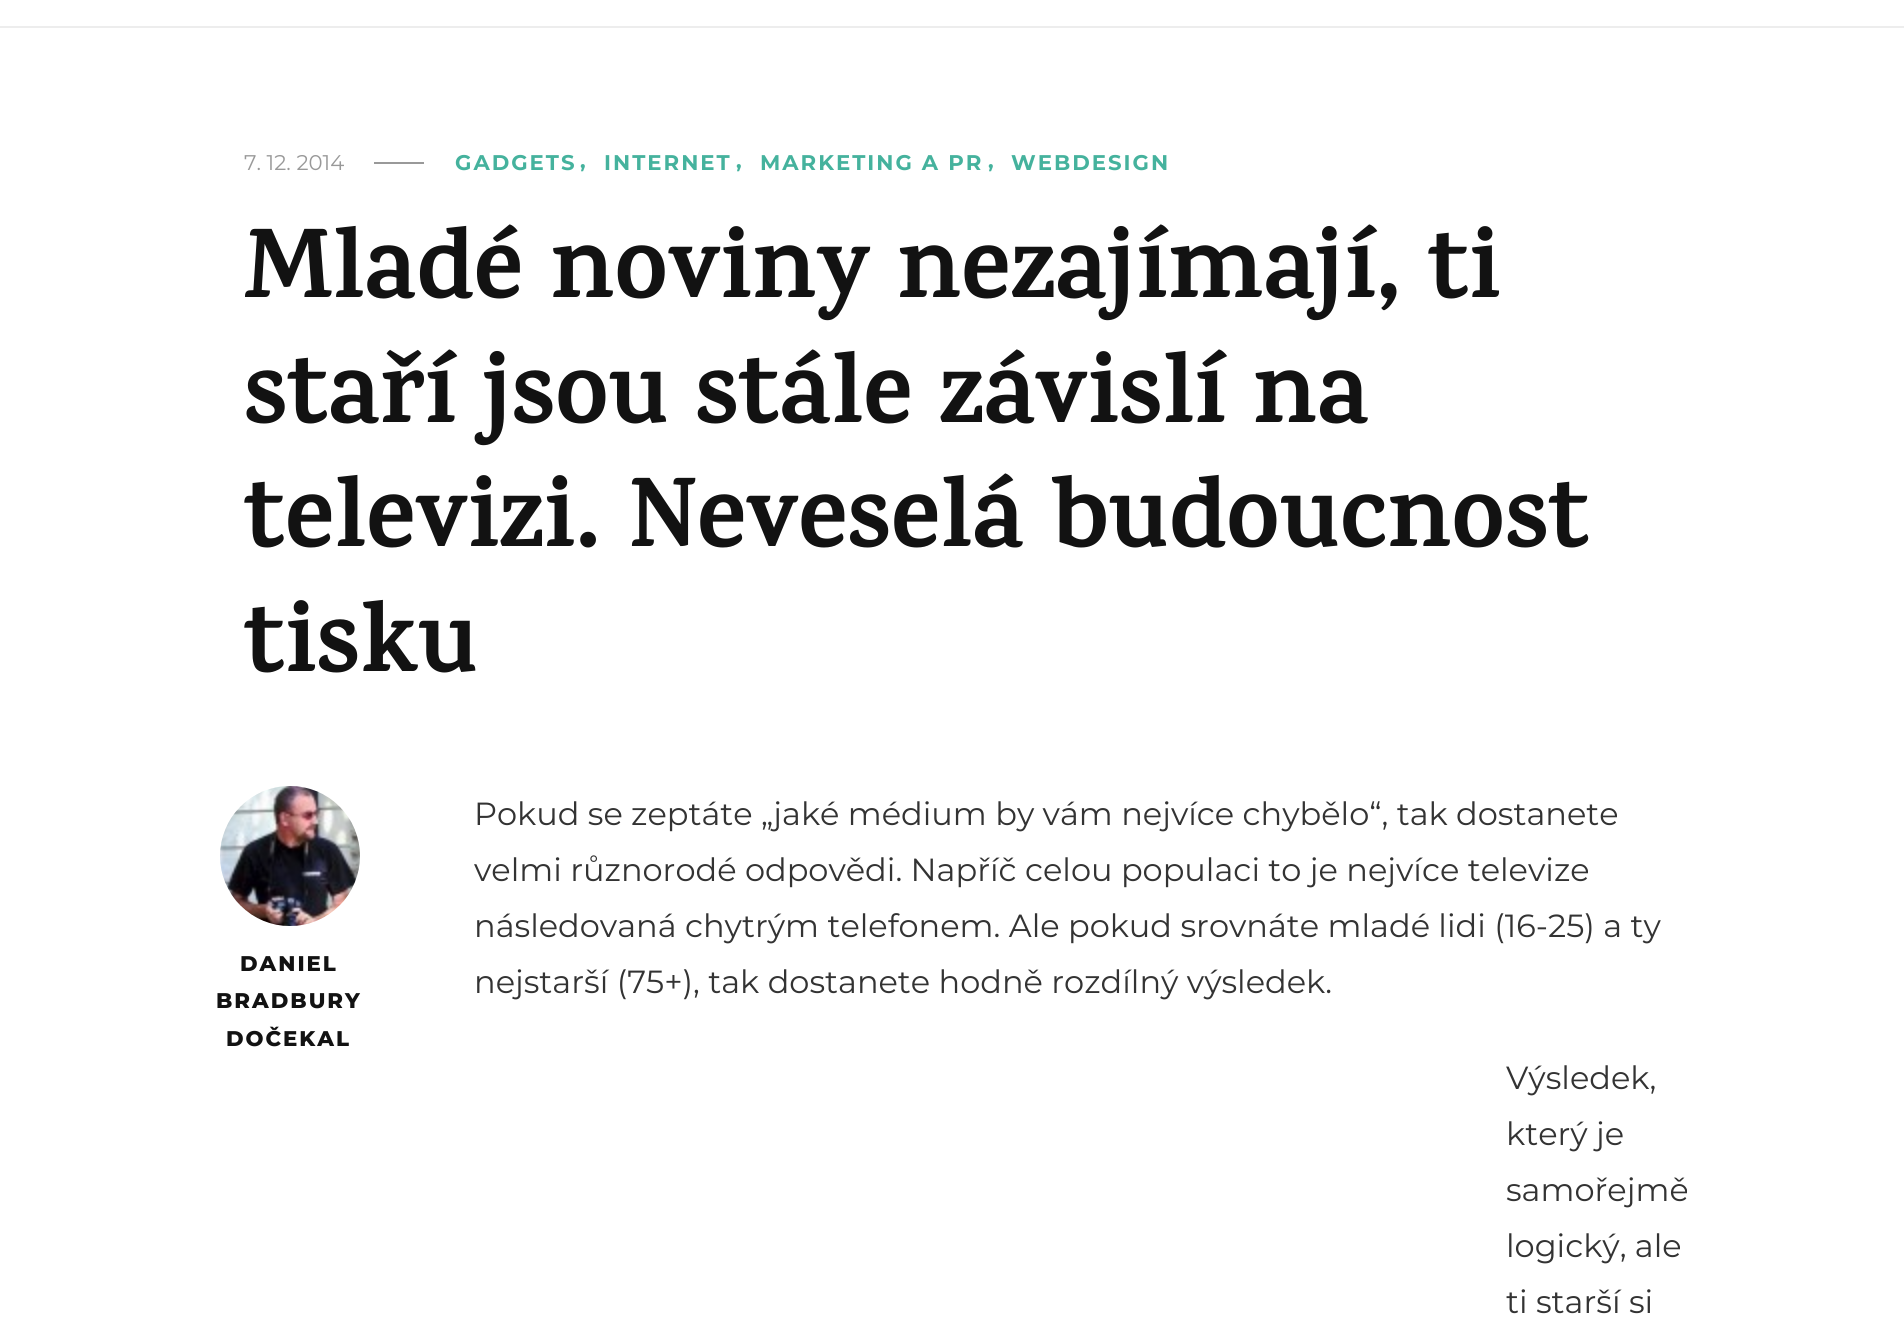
#include <cairo/cairo.h>
#include <math.h>
#include <stddef.h>

static cairo_t *cr;

static void use_color(int r, int g, int b) {
  cairo_set_source_rgb(cr, r / 255.0, g / 255.0, b / 255.0);
}

static void text(double x, double y, const char *s, const char *family, double size, int italic, int bold, int r, int g, int b) {
  cairo_select_font_face(cr, family, italic ? CAIRO_FONT_SLANT_ITALIC : CAIRO_FONT_SLANT_NORMAL,
    bold ? CAIRO_FONT_WEIGHT_BOLD : CAIRO_FONT_WEIGHT_NORMAL);
  cairo_set_font_size(cr, size);
  use_color(r, g, b);
  cairo_move_to(cr, x, y);
  cairo_show_text(cr, s);
}

static void spaced_text(double x, double y, const char *s, double letter, double word) {
  cairo_move_to(cr, x, y);
  while (*s) {
    char ch[5] = {0};
    int n = 0;
    do ch[n++] = *s++; while ((*s & 0xC0) == 0x80);
    cairo_show_text(cr, ch);
    cairo_rel_move_to(cr, letter + word * (*ch == ' '), 0);
  }
}

static void box(double x, double y, double w, double h, int r, int g, int b) {
  use_color(r, g, b);
  cairo_rectangle(cr, x, y, w, h);
  cairo_fill(cr);
}

static void picture(const char *path, double x, double y, double w, double h) {
  cairo_surface_t *image = cairo_image_surface_create_from_png(path);
  cairo_save(cr);
  cairo_set_source_surface(cr, image, x, y);
  cairo_rectangle(cr, x, y, w, h);
  cairo_fill(cr);
  cairo_restore(cr);
  cairo_surface_destroy(image);
}

static void draw(void) {
  use_color(255, 255, 255);
  cairo_paint(cr);
  box(0, 26, 1904, 2, 237, 237, 237);
  box(374, 162, 50, 2, 153, 153, 153);
  picture("img_01.png", 220, 786, 140, 140);
  text(244, 170, "7. 12. 2014", "Montserrat", 21.25, 0, 0, 153, 153, 153);
  cairo_select_font_face(cr, "Montserrat", CAIRO_FONT_SLANT_NORMAL, CAIRO_FONT_WEIGHT_BOLD);
  use_color(69, 178, 157);
  spaced_text(455, 170, "GADGETS", 2, 0);
  spaced_text(580, 168, ",", 2, 0);
  spaced_text(604, 170, "INTERNET", 2, 0);
  spaced_text(736, 168, ",", 2, 0);
  spaced_text(760, 170, "MARKETING A PR", 2, 0);
  spaced_text(988, 168, ",", 2, 0);
  spaced_text(1011, 170, "WEBDESIGN", 2, 0);
  text(244, 297, "Mladé noviny nezajímají, ti", "Karma", 99.5, 0, 1, 18, 18, 18);
  text(244, 422, "staří jsou stále závislí na", "Karma", 99.5, 0, 1, 18, 18, 18);
  text(244, 546, "televizi. Neveselá budoucnost", "Karma", 99.5, 0, 1, 18, 18, 18);
  text(244, 671, "tisku", "Karma", 99.5, 0, 1, 18, 18, 18);
  cairo_select_font_face(cr, "Montserrat ExtraBold", CAIRO_FONT_SLANT_NORMAL, CAIRO_FONT_WEIGHT_NORMAL);
  cairo_set_font_size(cr, 21.25);
  spaced_text(240, 971, "DANIEL", 2, 0);
  spaced_text(216, 1008, "BRADBURY", 2, 0);
  spaced_text(226, 1046, "DOČEKAL", 2, 0);
  text(474, 825, "Pokud se zeptáte „jaké médium by vám nejvíce chybělo“, tak dostanete", "Montserrat", 32, 0, 0, 51, 51, 51);
  text(474, 881, "velmi různorodé odpovědi. Napříč celou populaci to je nejvíce televize", "Montserrat", 32, 0, 0, 51, 51, 51);
  text(474, 937, "následovaná chytrým telefonem. Ale pokud srovnáte mladé lidi (16-25) a ty", "Montserrat", 32, 0, 0, 51, 51, 51);
  text(474, 993, "nejstarší (75+), tak dostanete hodně rozdílný výsledek.", "Montserrat", 32, 0, 0, 51, 51, 51);
  text(1506, 1089, "Výsledek,", "Montserrat", 32, 0, 0, 51, 51, 51);
  text(1506, 1145, "který je", "Montserrat", 32, 0, 0, 51, 51, 51);
  text(1506, 1201, "samořejmě", "Montserrat", 32, 0, 0, 51, 51, 51);
  text(1506, 1257, "logický, ale", "Montserrat", 32, 0, 0, 51, 51, 51);
  text(1506, 1313, "ti starší si", "Montserrat", 32, 0, 0, 51, 51, 51);
}

int main(void) {
  cairo_surface_t *surface = cairo_image_surface_create(CAIRO_FORMAT_RGB24, 1904, 1323);
  cr = cairo_create(surface);
  cairo_font_options_t *options = cairo_font_options_create();
  cairo_font_options_set_hint_metrics(options, CAIRO_HINT_METRICS_OFF);
  cairo_font_options_set_hint_style(options, CAIRO_HINT_STYLE_NONE);
  cairo_set_font_options(cr, options);
  cairo_set_miter_limit(cr, 4);
  draw();
  cairo_surface_write_to_png(surface, "out.png");
  cairo_font_options_destroy(options);
  cairo_destroy(cr);
  cairo_surface_destroy(surface);
  return 0;
}
